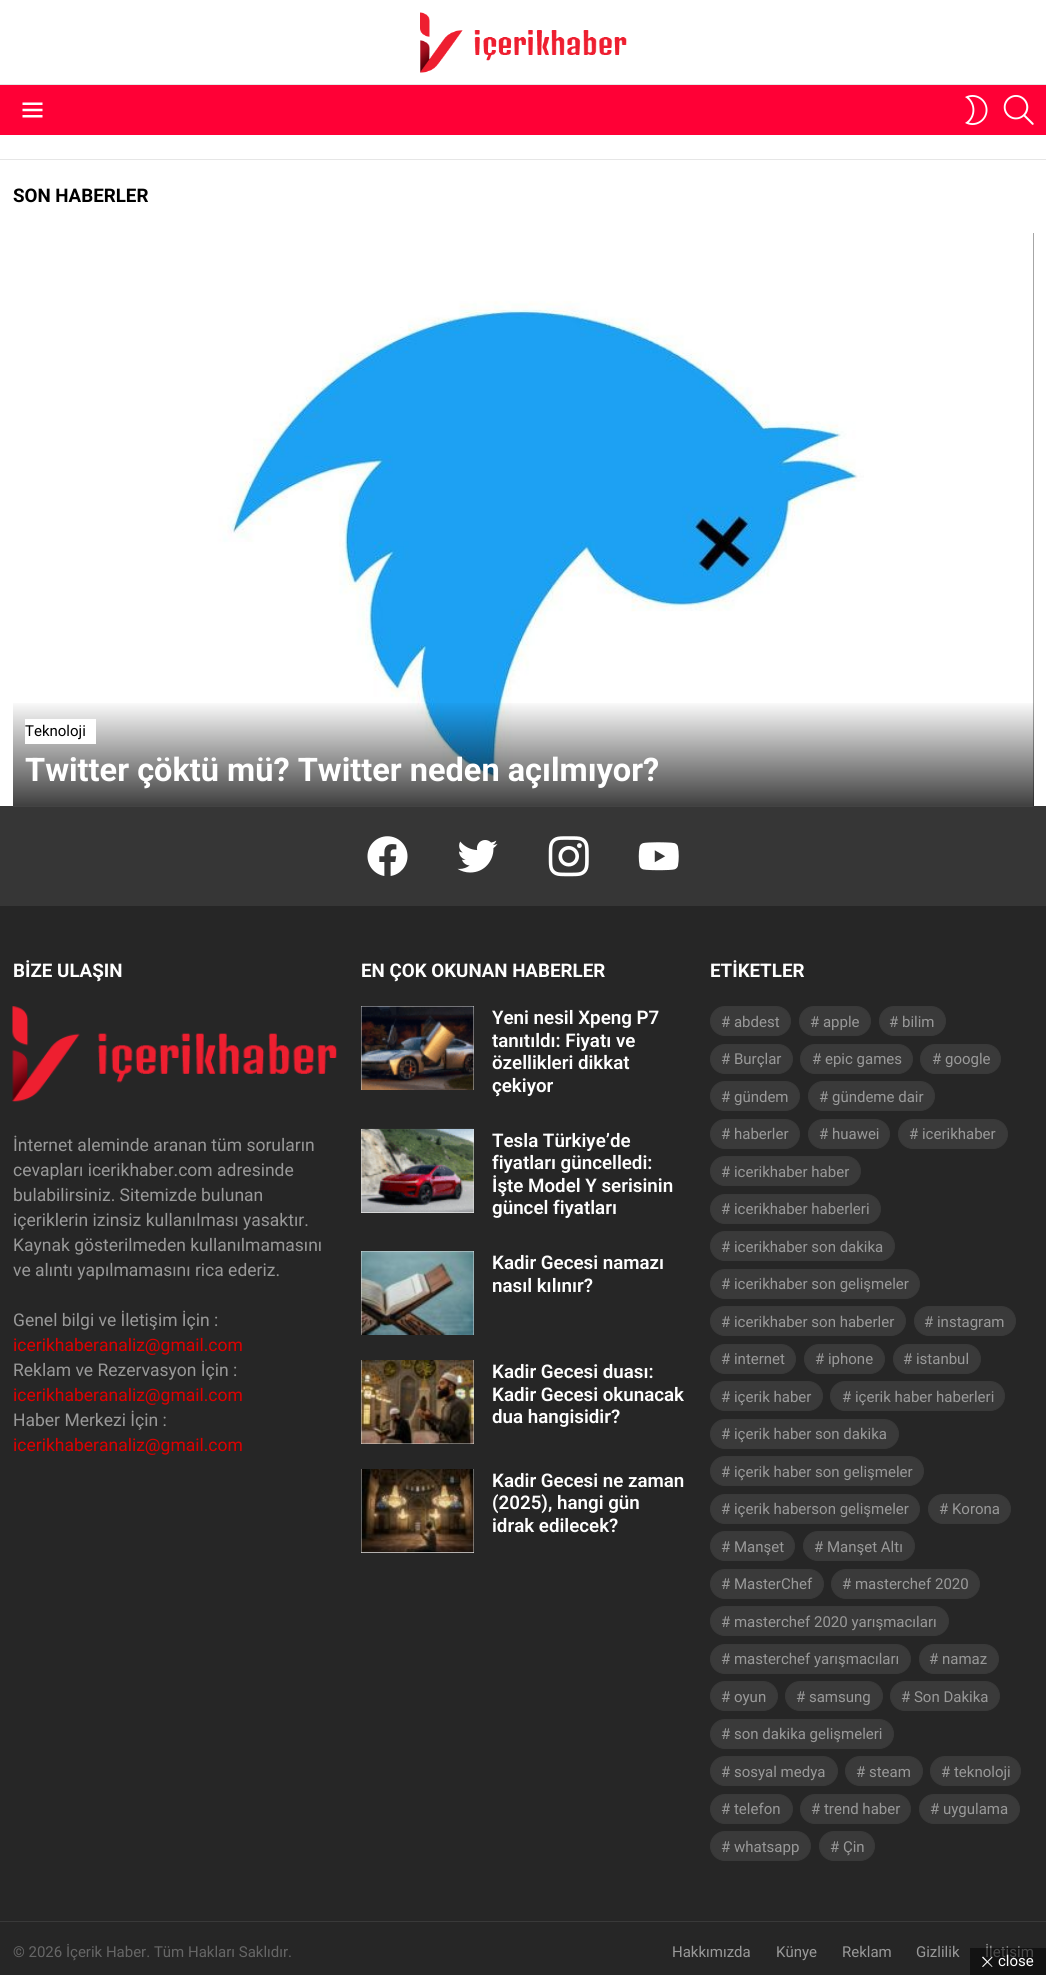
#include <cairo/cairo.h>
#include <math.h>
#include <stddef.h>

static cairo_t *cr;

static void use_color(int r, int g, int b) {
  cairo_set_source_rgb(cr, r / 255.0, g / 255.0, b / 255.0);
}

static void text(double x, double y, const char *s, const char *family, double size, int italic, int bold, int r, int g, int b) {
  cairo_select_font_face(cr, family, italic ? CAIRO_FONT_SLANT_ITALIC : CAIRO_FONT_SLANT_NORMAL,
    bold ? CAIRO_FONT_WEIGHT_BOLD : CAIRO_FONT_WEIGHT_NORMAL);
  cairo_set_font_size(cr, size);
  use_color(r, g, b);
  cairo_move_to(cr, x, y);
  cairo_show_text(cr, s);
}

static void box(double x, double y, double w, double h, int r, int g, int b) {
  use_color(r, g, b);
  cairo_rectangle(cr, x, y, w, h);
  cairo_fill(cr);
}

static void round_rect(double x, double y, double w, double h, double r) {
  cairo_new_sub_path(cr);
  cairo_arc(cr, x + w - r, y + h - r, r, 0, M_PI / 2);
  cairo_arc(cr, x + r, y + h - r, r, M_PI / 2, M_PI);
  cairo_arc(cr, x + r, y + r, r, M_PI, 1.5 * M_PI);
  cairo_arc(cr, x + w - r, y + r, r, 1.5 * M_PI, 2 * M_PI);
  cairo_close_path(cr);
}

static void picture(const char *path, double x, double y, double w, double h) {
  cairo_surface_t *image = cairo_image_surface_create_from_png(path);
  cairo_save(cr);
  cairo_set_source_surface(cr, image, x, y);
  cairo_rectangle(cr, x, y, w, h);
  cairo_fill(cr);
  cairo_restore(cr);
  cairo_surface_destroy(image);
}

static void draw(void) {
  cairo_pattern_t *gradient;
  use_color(230, 230, 230);
  cairo_paint(cr);
  box(0, 0, 1046, 84, 255, 255, 255);
  picture("img_01.png", 420, 12, 207, 61);
  box(0, 85, 1046, 50, 255, 0, 54);
  picture("img_02.png", 22, 102, 21, 16);
  picture("img_03.png", 965, 95, 23, 30);
  picture("img_04.png", 1003, 95, 31, 30);
  box(0, 135, 1046, 24, 255, 255, 255);
  box(0, 160, 1046, 646, 255, 255, 255);
  box(1033, 233, 1, 573, 51, 51, 51);
  box(0, 806, 1046, 100, 54, 54, 54);
  picture("img_05.png", 13, 233, 1021, 574);
  gradient = cairo_pattern_create_linear(523, 700, 523, 806);
  cairo_pattern_add_color_stop_rgba(gradient, 0, 0, 0, 0, 0);
  cairo_pattern_add_color_stop_rgba(gradient, 1, 0, 0, 0, 0.75);
  cairo_set_source(cr, gradient);
  cairo_pattern_destroy(gradient);
  cairo_rectangle(cr, 13, 703, 1021, 103);
  cairo_fill(cr);
  box(25, 719, 71, 25, 255, 255, 255);
  picture("img_06.png", 367, 836, 41, 40);
  picture("img_07.png", 457, 840, 41, 33);
  picture("img_08.png", 548, 836, 41, 41);
  picture("img_09.png", 638, 842, 41, 29);
  box(0, 906, 1046, 1015, 38, 38, 38);
  picture("img_10.png", 12, 1006, 325, 96);
  box(361, 1006, 113, 84, 230, 230, 230);
  picture("img_11.png", 361, 1006, 113, 84);
  box(361, 1129, 113, 84, 230, 230, 230);
  picture("img_12.png", 361, 1128, 113, 85);
  box(361, 1251, 113, 84, 230, 230, 230);
  picture("img_13.png", 361, 1251, 113, 84);
  box(361, 1360, 113, 84, 230, 230, 230);
  picture("img_14.png", 361, 1360, 113, 84);
  box(361, 1469, 113, 84, 230, 230, 230);
  picture("img_15.png", 361, 1469, 113, 84);
  box(0, 1921, 1046, 1, 57, 57, 57);
  box(0, 1922, 1046, 53, 38, 38, 38);
  text(13, 202, "SON HABERLER", "Roboto", 18.75, 0, 1, 0, 0, 0);
  text(25, 736, "Teknoloji", "Roboto", 15, 0, 0, 0, 0, 0);
  text(25, 781, "Twitter çöktü mü? Twitter neden açılmıyor?", "Roboto", 32.5, 0, 1, 255, 255, 255);
  text(13, 977, "BİZE ULAŞIN", "Roboto", 18.75, 0, 1, 255, 255, 255);
  text(13, 1151, "İnternet aleminde aranan tüm soruların", "Roboto", 17.5, 0, 0, 153, 153, 153);
  text(13, 1176, "cevapları icerikhaber.com adresinde", "Roboto", 17.5, 0, 0, 153, 153, 153);
  text(13, 1201, "bulabilirsiniz. Sitemizde bulunan", "Roboto", 17.5, 0, 0, 153, 153, 153);
  text(13, 1226, "içeriklerin izinsiz kullanılması yasaktır.", "Roboto", 17.5, 0, 0, 153, 153, 153);
  text(13, 1251, "Kaynak gösterilmeden kullanılmamasını", "Roboto", 17.5, 0, 0, 153, 153, 153);
  text(13, 1276, "ve alıntı yapılmamasını rica ederiz.", "Roboto", 17.5, 0, 0, 153, 153, 153);
  text(13, 1326, "Genel bilgi ve İletişim İçin :", "Roboto", 17.5, 0, 0, 153, 153, 153);
  text(13, 1351, "icerikhaberanaliz@gmail.com", "Roboto", 17.5, 0, 0, 221, 0, 0);
  text(13, 1376, "Reklam ve Rezervasyon İçin :", "Roboto", 17.5, 0, 0, 153, 153, 153);
  text(13, 1401, "icerikhaberanaliz@gmail.com", "Roboto", 17.5, 0, 0, 221, 0, 0);
  text(13, 1426, "Haber Merkezi İçin :", "Roboto", 17.5, 0, 0, 153, 153, 153);
  text(13, 1451, "icerikhaberanaliz@gmail.com", "Roboto", 17.5, 0, 0, 221, 0, 0);
  text(361, 977, "EN ÇOK OKUNAN HABERLER", "Roboto", 18.75, 0, 1, 255, 255, 255);
  text(492, 1024, "Yeni nesil Xpeng P7", "Roboto SemiBold", 18.75, 0, 0, 255, 255, 255);
  text(492, 1047, "tanıtıldı: Fiyatı ve", "Roboto SemiBold", 18.75, 0, 0, 255, 255, 255);
  text(492, 1069, "özellikleri dikkat", "Roboto SemiBold", 18.75, 0, 0, 255, 255, 255);
  text(492, 1092, "çekiyor", "Roboto SemiBold", 18.75, 0, 0, 255, 255, 255);
  text(492, 1147, "Tesla Türkiye’de", "Roboto SemiBold", 18.75, 0, 0, 255, 255, 255);
  text(492, 1169, "fiyatları güncelledi:", "Roboto SemiBold", 18.75, 0, 0, 255, 255, 255);
  text(492, 1192, "İşte Model Y serisinin", "Roboto SemiBold", 18.75, 0, 0, 255, 255, 255);
  text(492, 1214, "güncel fiyatları", "Roboto SemiBold", 18.75, 0, 0, 255, 255, 255);
  text(492, 1269, "Kadir Gecesi namazı", "Roboto SemiBold", 18.75, 0, 0, 255, 255, 255);
  text(492, 1292, "nasıl kılınır?", "Roboto SemiBold", 18.75, 0, 0, 255, 255, 255);
  text(492, 1378, "Kadir Gecesi duası:", "Roboto SemiBold", 18.75, 0, 0, 255, 255, 255);
  text(492, 1401, "Kadir Gecesi okunacak", "Roboto SemiBold", 18.75, 0, 0, 255, 255, 255);
  text(492, 1423, "dua hangisidir?", "Roboto SemiBold", 18.75, 0, 0, 255, 255, 255);
  text(492, 1487, "Kadir Gecesi ne zaman", "Roboto SemiBold", 18.75, 0, 0, 255, 255, 255);
  text(492, 1509, "(2025), hangi gün", "Roboto SemiBold", 18.75, 0, 0, 255, 255, 255);
  text(492, 1532, "idrak edilecek?", "Roboto SemiBold", 18.75, 0, 0, 255, 255, 255);
  text(710, 977, "ETİKETLER", "Roboto", 18.75, 0, 1, 255, 255, 255);
  text(721, 1027, "# abdest", "Roboto", 15, 0, 0, 153, 153, 153);
  cairo_set_source_rgba(cr, 0.6, 0.6, 0.6, 0.17);
  round_rect(710.5, 1006.5, 80, 29, 14.5);
  cairo_fill_preserve(cr);
  use_color(57, 57, 57);
  cairo_set_line_width(cr, 1);
  cairo_stroke(cr);
  text(810, 1027, "# apple", "Roboto", 15, 0, 0, 153, 153, 153);
  cairo_set_source_rgba(cr, 0.6, 0.6, 0.6, 0.17);
  round_rect(799.5, 1006.5, 71, 29, 14.5);
  cairo_fill_preserve(cr);
  use_color(57, 57, 57);
  cairo_stroke(cr);
  text(889, 1027, "# bilim", "Roboto", 15, 0, 0, 153, 153, 153);
  cairo_set_source_rgba(cr, 0.6, 0.6, 0.6, 0.17);
  round_rect(879.5, 1006.5, 66, 29, 14.5);
  cairo_fill_preserve(cr);
  use_color(57, 57, 57);
  cairo_stroke(cr);
  text(721, 1064, "# Burçlar", "Roboto", 15, 0, 0, 153, 153, 153);
  cairo_set_source_rgba(cr, 0.6, 0.6, 0.6, 0.17);
  round_rect(710.5, 1044.5, 82, 29, 14.5);
  cairo_fill_preserve(cr);
  use_color(57, 57, 57);
  cairo_stroke(cr);
  text(812, 1064, "# epic games", "Roboto", 15, 0, 0, 153, 153, 153);
  cairo_set_source_rgba(cr, 0.6, 0.6, 0.6, 0.17);
  round_rect(800.5, 1044.5, 112, 29, 14.5);
  cairo_fill_preserve(cr);
  use_color(57, 57, 57);
  cairo_stroke(cr);
  text(932, 1064, "# google", "Roboto", 15, 0, 0, 153, 153, 153);
  cairo_set_source_rgba(cr, 0.6, 0.6, 0.6, 0.17);
  round_rect(920.5, 1044.5, 80, 29, 14.5);
  cairo_fill_preserve(cr);
  use_color(57, 57, 57);
  cairo_stroke(cr);
  text(721, 1102, "# gündem", "Roboto", 15, 0, 0, 153, 153, 153);
  cairo_set_source_rgba(cr, 0.6, 0.6, 0.6, 0.17);
  round_rect(710.5, 1081.5, 89, 29, 14.5);
  cairo_fill_preserve(cr);
  use_color(57, 57, 57);
  cairo_stroke(cr);
  text(819, 1102, "# gündeme dair", "Roboto", 15, 0, 0, 153, 153, 153);
  cairo_set_source_rgba(cr, 0.6, 0.6, 0.6, 0.17);
  round_rect(808.5, 1081.5, 126, 29, 14.5);
  cairo_fill_preserve(cr);
  use_color(57, 57, 57);
  cairo_stroke(cr);
  text(721, 1139, "# haberler", "Roboto", 15, 0, 0, 153, 153, 153);
  cairo_set_source_rgba(cr, 0.6, 0.6, 0.6, 0.17);
  round_rect(710.5, 1119.5, 89, 29, 14.5);
  cairo_fill_preserve(cr);
  use_color(57, 57, 57);
  cairo_stroke(cr);
  text(819, 1139, "# huawei", "Roboto", 15, 0, 0, 153, 153, 153);
  cairo_set_source_rgba(cr, 0.6, 0.6, 0.6, 0.17);
  round_rect(808.5, 1119.5, 81, 29, 14.5);
  cairo_fill_preserve(cr);
  use_color(57, 57, 57);
  cairo_stroke(cr);
  text(909, 1139, "# icerikhaber", "Roboto", 15, 0, 0, 153, 153, 153);
  cairo_set_source_rgba(cr, 0.6, 0.6, 0.6, 0.17);
  round_rect(898.5, 1119.5, 109, 29, 14.5);
  cairo_fill_preserve(cr);
  use_color(57, 57, 57);
  cairo_stroke(cr);
  text(721, 1177, "# icerikhaber haber", "Roboto", 15, 0, 0, 153, 153, 153);
  cairo_set_source_rgba(cr, 0.6, 0.6, 0.6, 0.17);
  round_rect(710.5, 1156.5, 150, 29, 14.5);
  cairo_fill_preserve(cr);
  use_color(57, 57, 57);
  cairo_stroke(cr);
  text(721, 1214, "# icerikhaber haberleri", "Roboto", 15, 0, 0, 153, 153, 153);
  cairo_set_source_rgba(cr, 0.6, 0.6, 0.6, 0.17);
  round_rect(710.5, 1194.5, 170, 29, 14.5);
  cairo_fill_preserve(cr);
  use_color(57, 57, 57);
  cairo_stroke(cr);
  text(721, 1252, "# icerikhaber son dakika", "Roboto", 15, 0, 0, 153, 153, 153);
  cairo_set_source_rgba(cr, 0.6, 0.6, 0.6, 0.17);
  round_rect(710.5, 1231.5, 184, 29, 14.5);
  cairo_fill_preserve(cr);
  use_color(57, 57, 57);
  cairo_stroke(cr);
  text(721, 1289, "# icerikhaber son gelişmeler", "Roboto", 15, 0, 0, 153, 153, 153);
  cairo_set_source_rgba(cr, 0.6, 0.6, 0.6, 0.17);
  round_rect(710.5, 1269.5, 209, 29, 14.5);
  cairo_fill_preserve(cr);
  use_color(57, 57, 57);
  cairo_stroke(cr);
  text(721, 1327, "# icerikhaber son haberler", "Roboto", 15, 0, 0, 153, 153, 153);
  cairo_set_source_rgba(cr, 0.6, 0.6, 0.6, 0.17);
  round_rect(710.5, 1306.5, 195, 29, 14.5);
  cairo_fill_preserve(cr);
  use_color(57, 57, 57);
  cairo_stroke(cr);
  text(924, 1327, "# instagram", "Roboto", 15, 0, 0, 153, 153, 153);
  cairo_set_source_rgba(cr, 0.6, 0.6, 0.6, 0.17);
  round_rect(914.5, 1306.5, 101, 29, 14.5);
  cairo_fill_preserve(cr);
  use_color(57, 57, 57);
  cairo_stroke(cr);
  text(721, 1364, "# internet", "Roboto", 15, 0, 0, 153, 153, 153);
  cairo_set_source_rgba(cr, 0.6, 0.6, 0.6, 0.17);
  round_rect(710.5, 1344.5, 85, 29, 14.5);
  cairo_fill_preserve(cr);
  use_color(57, 57, 57);
  cairo_stroke(cr);
  text(815, 1364, "# iphone", "Roboto", 15, 0, 0, 153, 153, 153);
  cairo_set_source_rgba(cr, 0.6, 0.6, 0.6, 0.17);
  round_rect(804.5, 1344.5, 80, 29, 14.5);
  cairo_fill_preserve(cr);
  use_color(57, 57, 57);
  cairo_stroke(cr);
  text(903, 1364, "# istanbul", "Roboto", 15, 0, 0, 153, 153, 153);
  cairo_set_source_rgba(cr, 0.6, 0.6, 0.6, 0.17);
  round_rect(893.5, 1344.5, 87, 29, 14.5);
  cairo_fill_preserve(cr);
  use_color(57, 57, 57);
  cairo_stroke(cr);
  text(721, 1402, "# içerik haber", "Roboto", 15, 0, 0, 153, 153, 153);
  cairo_set_source_rgba(cr, 0.6, 0.6, 0.6, 0.17);
  round_rect(710.5, 1381.5, 112, 29, 14.5);
  cairo_fill_preserve(cr);
  use_color(57, 57, 57);
  cairo_stroke(cr);
  text(842, 1402, "# içerik haber haberleri", "Roboto", 15, 0, 0, 153, 153, 153);
  cairo_set_source_rgba(cr, 0.6, 0.6, 0.6, 0.17);
  round_rect(830.5, 1381.5, 174, 29, 14.5);
  cairo_fill_preserve(cr);
  use_color(57, 57, 57);
  cairo_stroke(cr);
  text(721, 1439, "# içerik haber son dakika", "Roboto", 15, 0, 0, 153, 153, 153);
  cairo_set_source_rgba(cr, 0.6, 0.6, 0.6, 0.17);
  round_rect(710.5, 1419.5, 188, 29, 14.5);
  cairo_fill_preserve(cr);
  use_color(57, 57, 57);
  cairo_stroke(cr);
  text(721, 1477, "# içerik haber son gelişmeler", "Roboto", 15, 0, 0, 153, 153, 153);
  cairo_set_source_rgba(cr, 0.6, 0.6, 0.6, 0.17);
  round_rect(710.5, 1456.5, 213, 29, 14.5);
  cairo_fill_preserve(cr);
  use_color(57, 57, 57);
  cairo_stroke(cr);
  text(721, 1514, "# içerik haberson gelişmeler", "Roboto", 15, 0, 0, 153, 153, 153);
  cairo_set_source_rgba(cr, 0.6, 0.6, 0.6, 0.17);
  round_rect(710.5, 1494.5, 209, 29, 14.5);
  cairo_fill_preserve(cr);
  use_color(57, 57, 57);
  cairo_stroke(cr);
  text(939, 1514, "# Korona", "Roboto", 15, 0, 0, 153, 153, 153);
  cairo_set_source_rgba(cr, 0.6, 0.6, 0.6, 0.17);
  round_rect(928.5, 1494.5, 82, 29, 14.5);
  cairo_fill_preserve(cr);
  use_color(57, 57, 57);
  cairo_stroke(cr);
  text(721, 1552, "# Manşet", "Roboto", 15, 0, 0, 153, 153, 153);
  cairo_set_source_rgba(cr, 0.6, 0.6, 0.6, 0.17);
  round_rect(710.5, 1531.5, 84, 29, 14.5);
  cairo_fill_preserve(cr);
  use_color(57, 57, 57);
  cairo_stroke(cr);
  text(814, 1552, "# Manşet Altı", "Roboto", 15, 0, 0, 153, 153, 153);
  cairo_set_source_rgba(cr, 0.6, 0.6, 0.6, 0.17);
  round_rect(803.5, 1531.5, 111, 29, 14.5);
  cairo_fill_preserve(cr);
  use_color(57, 57, 57);
  cairo_stroke(cr);
  text(721, 1589, "# MasterChef", "Roboto", 15, 0, 0, 153, 153, 153);
  cairo_set_source_rgba(cr, 0.6, 0.6, 0.6, 0.17);
  round_rect(710.5, 1569.5, 113, 29, 14.5);
  cairo_fill_preserve(cr);
  use_color(57, 57, 57);
  cairo_stroke(cr);
  text(842, 1589, "# masterchef 2020", "Roboto", 15, 0, 0, 153, 153, 153);
  cairo_set_source_rgba(cr, 0.6, 0.6, 0.6, 0.17);
  round_rect(831.5, 1569.5, 148, 29, 14.5);
  cairo_fill_preserve(cr);
  use_color(57, 57, 57);
  cairo_stroke(cr);
  text(721, 1627, "# masterchef 2020 yarışmacıları", "Roboto", 15, 0, 0, 153, 153, 153);
  cairo_set_source_rgba(cr, 0.6, 0.6, 0.6, 0.17);
  round_rect(710.5, 1606.5, 238, 29, 14.5);
  cairo_fill_preserve(cr);
  use_color(57, 57, 57);
  cairo_stroke(cr);
  text(721, 1664, "# masterchef yarışmacıları", "Roboto", 15, 0, 0, 153, 153, 153);
  cairo_set_source_rgba(cr, 0.6, 0.6, 0.6, 0.17);
  round_rect(710.5, 1644.5, 200, 29, 14.5);
  cairo_fill_preserve(cr);
  use_color(57, 57, 57);
  cairo_stroke(cr);
  text(929, 1664, "# namaz", "Roboto", 15, 0, 0, 153, 153, 153);
  cairo_set_source_rgba(cr, 0.6, 0.6, 0.6, 0.17);
  round_rect(919.5, 1644.5, 79, 29, 14.5);
  cairo_fill_preserve(cr);
  use_color(57, 57, 57);
  cairo_stroke(cr);
  text(721, 1702, "# oyun", "Roboto", 15, 0, 0, 153, 153, 153);
  cairo_set_source_rgba(cr, 0.6, 0.6, 0.6, 0.17);
  round_rect(710.5, 1681.5, 67, 29, 14.5);
  cairo_fill_preserve(cr);
  use_color(57, 57, 57);
  cairo_stroke(cr);
  text(796, 1702, "# samsung", "Roboto", 15, 0, 0, 153, 153, 153);
  cairo_set_source_rgba(cr, 0.6, 0.6, 0.6, 0.17);
  round_rect(785.5, 1681.5, 97, 29, 14.5);
  cairo_fill_preserve(cr);
  use_color(57, 57, 57);
  cairo_stroke(cr);
  text(901, 1702, "# Son Dakika", "Roboto", 15, 0, 0, 153, 153, 153);
  cairo_set_source_rgba(cr, 0.6, 0.6, 0.6, 0.17);
  round_rect(890.5, 1681.5, 109, 29, 14.5);
  cairo_fill_preserve(cr);
  use_color(57, 57, 57);
  cairo_stroke(cr);
  text(721, 1739, "# son dakika gelişmeleri", "Roboto", 15, 0, 0, 153, 153, 153);
  cairo_set_source_rgba(cr, 0.6, 0.6, 0.6, 0.17);
  round_rect(710.5, 1719.5, 183, 29, 14.5);
  cairo_fill_preserve(cr);
  use_color(57, 57, 57);
  cairo_stroke(cr);
  text(721, 1777, "# sosyal medya", "Roboto", 15, 0, 0, 153, 153, 153);
  cairo_set_source_rgba(cr, 0.6, 0.6, 0.6, 0.17);
  round_rect(710.5, 1756.5, 127, 29, 14.5);
  cairo_fill_preserve(cr);
  use_color(57, 57, 57);
  cairo_stroke(cr);
  text(856, 1777, "# steam", "Roboto", 15, 0, 0, 153, 153, 153);
  cairo_set_source_rgba(cr, 0.6, 0.6, 0.6, 0.17);
  round_rect(845.5, 1756.5, 77, 29, 14.5);
  cairo_fill_preserve(cr);
  use_color(57, 57, 57);
  cairo_stroke(cr);
  text(941, 1777, "# teknoloji", "Roboto", 15, 0, 0, 153, 153, 153);
  cairo_set_source_rgba(cr, 0.6, 0.6, 0.6, 0.17);
  round_rect(930.5, 1756.5, 90, 29, 14.5);
  cairo_fill_preserve(cr);
  use_color(57, 57, 57);
  cairo_stroke(cr);
  text(721, 1814, "# telefon", "Roboto", 15, 0, 0, 153, 153, 153);
  cairo_set_source_rgba(cr, 0.6, 0.6, 0.6, 0.17);
  round_rect(710.5, 1794.5, 82, 29, 14.5);
  cairo_fill_preserve(cr);
  use_color(57, 57, 57);
  cairo_stroke(cr);
  text(811, 1814, "# trend haber", "Roboto", 15, 0, 0, 153, 153, 153);
  cairo_set_source_rgba(cr, 0.6, 0.6, 0.6, 0.17);
  round_rect(800.5, 1794.5, 110, 29, 14.5);
  cairo_fill_preserve(cr);
  use_color(57, 57, 57);
  cairo_stroke(cr);
  text(930, 1814, "# uygulama", "Roboto", 15, 0, 0, 153, 153, 153);
  cairo_set_source_rgba(cr, 0.6, 0.6, 0.6, 0.17);
  round_rect(919.5, 1794.5, 100, 29, 14.5);
  cairo_fill_preserve(cr);
  use_color(57, 57, 57);
  cairo_stroke(cr);
  text(721, 1852, "# whatsapp", "Roboto", 15, 0, 0, 153, 153, 153);
  cairo_set_source_rgba(cr, 0.6, 0.6, 0.6, 0.17);
  round_rect(710.5, 1831.5, 100, 29, 14.5);
  cairo_fill_preserve(cr);
  use_color(57, 57, 57);
  cairo_stroke(cr);
  text(830, 1852, "# Çin", "Roboto", 15, 0, 0, 153, 153, 153);
  cairo_set_source_rgba(cr, 0.6, 0.6, 0.6, 0.17);
  round_rect(819.5, 1831.5, 55, 29, 14.5);
  cairo_fill_preserve(cr);
  use_color(57, 57, 57);
  cairo_stroke(cr);
  text(13, 1957, "© 2026 İçerik Haber. Tüm Hakları Saklıdır.", "Roboto", 15, 0, 0, 102, 102, 102);
  text(672, 1957, "Hakkımızda", "Roboto", 15, 0, 0, 153, 153, 153);
  text(776, 1957, "Künye", "Roboto", 15, 0, 0, 153, 153, 153);
  text(842, 1957, "Reklam", "Roboto", 15, 0, 0, 153, 153, 153);
  text(916, 1957, "Gizlilik", "Roboto", 15, 0, 0, 153, 153, 153);
  text(985, 1957, "İletişim", "Roboto", 15, 0, 0, 153, 153, 153);
  cairo_set_source_rgba(cr, 0, 0, 0, 0.5);
  cairo_rectangle(cr, 970, 1948, 76, 27);
  cairo_fill(cr);
  use_color(255, 255, 255);
  cairo_new_path(cr);
  cairo_move_to(cr, 983, 1956.5);
  cairo_line_to(cr, 992.5, 1966.5);
  cairo_line_to(cr, 992, 1967);
  cairo_line_to(cr, 982, 1957.5);
  cairo_close_path(cr);
  cairo_fill(cr);
  text(998, 1966, "close", "Roboto", 15, 0, 0, 255, 255, 255);
  cairo_new_path(cr);
  cairo_move_to(cr, 992, 1956.5);
  cairo_line_to(cr, 992.5, 1957.5);
  cairo_line_to(cr, 983, 1967);
  cairo_line_to(cr, 982, 1966.5);
  cairo_close_path(cr);
  cairo_fill(cr);
}

int main(void) {
  cairo_surface_t *surface = cairo_image_surface_create(CAIRO_FORMAT_RGB24, 1046, 1975);
  cr = cairo_create(surface);
  cairo_font_options_t *options = cairo_font_options_create();
  cairo_font_options_set_hint_metrics(options, CAIRO_HINT_METRICS_OFF);
  cairo_font_options_set_hint_style(options, CAIRO_HINT_STYLE_NONE);
  cairo_set_font_options(cr, options);
  cairo_set_miter_limit(cr, 4);
  draw();
  cairo_surface_write_to_png(surface, "out.png");
  cairo_font_options_destroy(options);
  cairo_destroy(cr);
  cairo_surface_destroy(surface);
  return 0;
}
